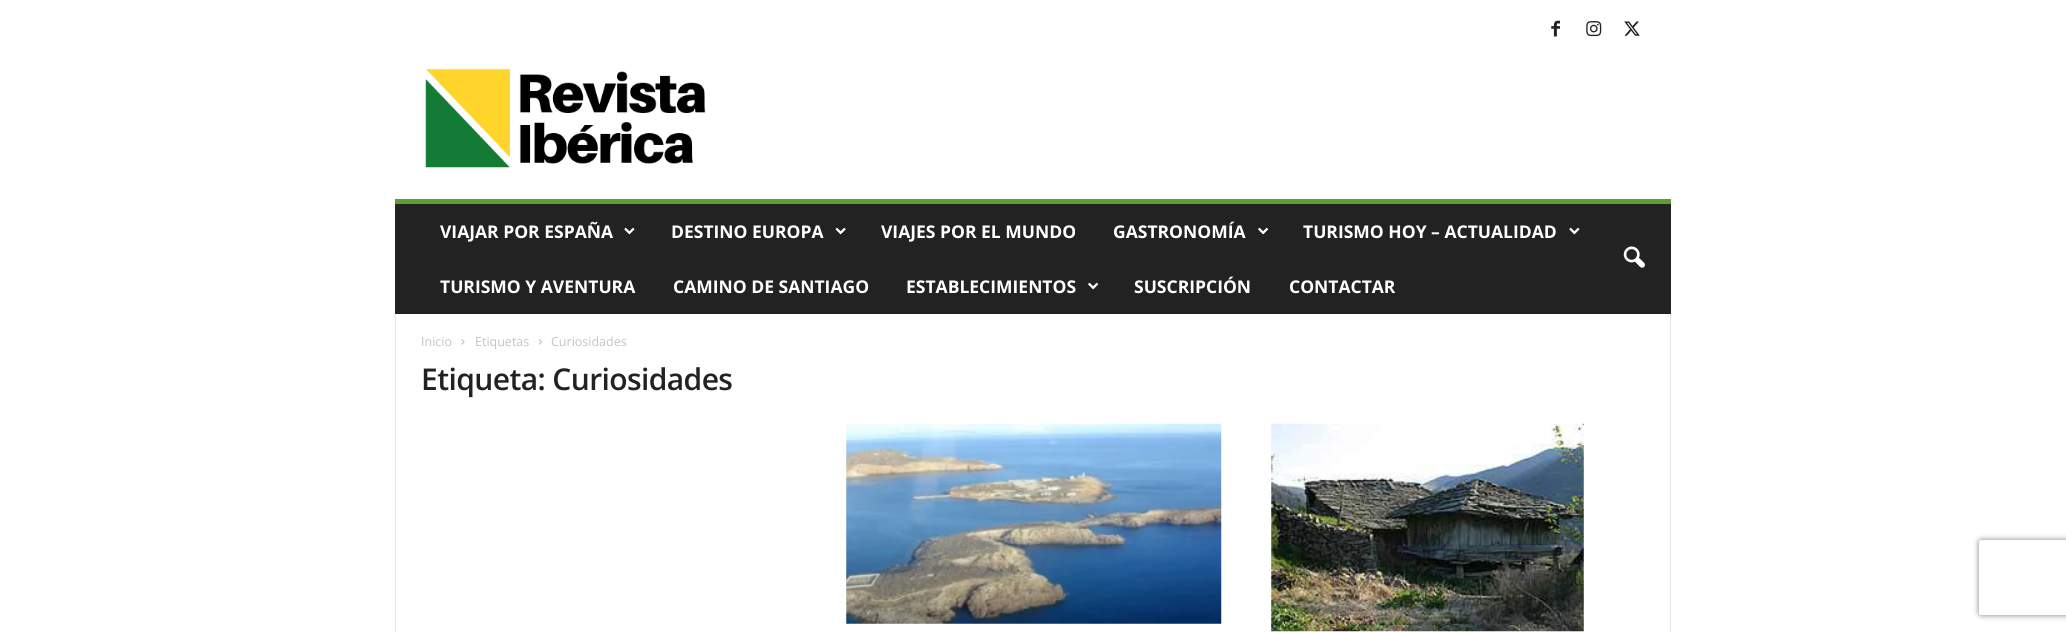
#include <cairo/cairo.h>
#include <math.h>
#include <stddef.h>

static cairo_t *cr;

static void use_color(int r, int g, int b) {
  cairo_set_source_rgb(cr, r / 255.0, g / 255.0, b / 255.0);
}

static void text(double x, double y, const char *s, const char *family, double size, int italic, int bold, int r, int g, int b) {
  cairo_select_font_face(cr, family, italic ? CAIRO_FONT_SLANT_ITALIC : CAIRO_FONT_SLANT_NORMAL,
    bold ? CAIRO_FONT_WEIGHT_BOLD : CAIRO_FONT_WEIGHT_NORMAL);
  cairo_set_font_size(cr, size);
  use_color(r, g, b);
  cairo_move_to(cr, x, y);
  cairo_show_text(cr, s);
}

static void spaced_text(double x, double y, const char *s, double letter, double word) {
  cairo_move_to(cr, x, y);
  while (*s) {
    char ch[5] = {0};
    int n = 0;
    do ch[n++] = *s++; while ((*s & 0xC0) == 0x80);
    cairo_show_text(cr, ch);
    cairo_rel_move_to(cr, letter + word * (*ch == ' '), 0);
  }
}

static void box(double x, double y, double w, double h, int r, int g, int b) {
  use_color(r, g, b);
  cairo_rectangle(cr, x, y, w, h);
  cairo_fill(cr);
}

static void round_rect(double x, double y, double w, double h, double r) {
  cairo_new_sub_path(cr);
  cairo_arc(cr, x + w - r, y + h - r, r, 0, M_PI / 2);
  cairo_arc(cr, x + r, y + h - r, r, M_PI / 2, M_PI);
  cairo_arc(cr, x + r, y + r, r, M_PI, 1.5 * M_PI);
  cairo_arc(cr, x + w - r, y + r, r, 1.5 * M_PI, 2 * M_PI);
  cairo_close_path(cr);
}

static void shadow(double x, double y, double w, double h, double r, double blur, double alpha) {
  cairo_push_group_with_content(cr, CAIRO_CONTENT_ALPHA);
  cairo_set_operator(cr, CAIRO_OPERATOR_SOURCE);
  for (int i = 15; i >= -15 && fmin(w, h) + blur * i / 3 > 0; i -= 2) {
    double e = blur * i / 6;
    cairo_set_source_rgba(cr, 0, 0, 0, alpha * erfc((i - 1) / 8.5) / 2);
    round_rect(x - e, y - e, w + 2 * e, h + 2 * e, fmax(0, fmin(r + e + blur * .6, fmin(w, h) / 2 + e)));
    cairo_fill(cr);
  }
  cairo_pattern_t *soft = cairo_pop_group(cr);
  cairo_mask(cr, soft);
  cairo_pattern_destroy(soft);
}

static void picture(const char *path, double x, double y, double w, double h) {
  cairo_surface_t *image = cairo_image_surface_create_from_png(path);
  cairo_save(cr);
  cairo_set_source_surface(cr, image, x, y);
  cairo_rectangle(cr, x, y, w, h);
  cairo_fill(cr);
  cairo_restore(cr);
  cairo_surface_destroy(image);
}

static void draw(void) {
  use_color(255, 255, 255);
  cairo_paint(cr);
  picture("img_01.png", 1551, 20, 9, 17);
  picture("img_02.png", 1586, 21, 16, 16);
  picture("img_03.png", 1624, 21, 16, 15);
  picture("img_04.png", 425, 68, 281, 100);
  box(395, 204, 1276, 110, 34, 34, 34);
  box(395, 199, 1276, 5, 94, 158, 49);
  picture("img_05.png", 624, 227, 11, 8);
  picture("img_06.png", 835, 227, 11, 8);
  picture("img_07.png", 1258, 227, 11, 8);
  picture("img_05.png", 1569, 227, 11, 8);
  picture("img_07.png", 1088, 282, 11, 8);
  picture("img_08.png", 1623, 246, 22, 22);
  box(395, 314, 1, 318, 230, 230, 230);
  picture("img_09.png", 461, 339, 4, 6);
  picture("img_10.png", 538, 339, 4, 6);
  picture("img_11.png", 846, 423, 376, 201);
  picture("img_12.png", 1271, 423, 313, 209);
  box(1670, 314, 1, 318, 230, 230, 230);
  cairo_save(cr);
  cairo_set_fill_rule(cr, CAIRO_FILL_RULE_EVEN_ODD);
  cairo_new_path(cr);
  cairo_move_to(cr, 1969, 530);
  cairo_line_to(cr, 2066, 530);
  cairo_line_to(cr, 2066, 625);
  cairo_line_to(cr, 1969, 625);
  cairo_close_path(cr);
  cairo_move_to(cr, 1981.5, 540);
  cairo_line_to(cr, 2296.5, 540);
  cairo_curve_to(cr, 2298, 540, 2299, 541, 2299, 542.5);
  cairo_line_to(cr, 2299, 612.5);
  cairo_curve_to(cr, 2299, 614, 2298, 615, 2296.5, 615);
  cairo_line_to(cr, 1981.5, 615);
  cairo_curve_to(cr, 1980, 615, 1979, 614, 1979, 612.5);
  cairo_line_to(cr, 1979, 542.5);
  cairo_curve_to(cr, 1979, 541, 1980, 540, 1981.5, 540);
  cairo_close_path(cr);
  cairo_clip(cr);
  use_color(128, 128, 128);
  shadow(1979, 540, 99, 75, 2.5, 3, 1);
  cairo_restore(cr);
  text(440, 238, "VIAJAR POR ESPAÑA", "Open Sans", 17.5, 0, 1, 255, 255, 255);
  text(671, 238, "DESTINO EUROPA", "Open Sans", 17.5, 0, 1, 255, 255, 255);
  text(881, 238, "VIAJES POR EL MUNDO", "Open Sans", 17.5, 0, 1, 255, 255, 255);
  text(1113, 238, "GASTRONOMÍA", "Open Sans", 17.5, 0, 1, 255, 255, 255);
  text(1303, 238, "TURISMO HOY – ACTUALIDAD", "Open Sans", 17.5, 0, 1, 255, 255, 255);
  text(440, 293, "TURISMO Y AVENTURA", "Open Sans", 17.5, 0, 1, 255, 255, 255);
  text(673, 293, "CAMINO DE SANTIAGO", "Open Sans", 17.5, 0, 1, 255, 255, 255);
  text(906, 293, "ESTABLECIMIENTOS", "Open Sans", 17.5, 0, 1, 255, 255, 255);
  text(1134, 293, "SUSCRIPCIÓN", "Open Sans", 17.5, 0, 1, 255, 255, 255);
  text(1289, 293, "CONTACTAR", "Open Sans", 17.5, 0, 1, 255, 255, 255);
  text(421, 346, "Inicio", "Open Sans", 12.5, 0, 0, 195, 195, 195);
  text(475, 346, "Etiquetas", "Open Sans", 12.5, 0, 0, 195, 195, 195);
  text(551, 346, "Curiosidades", "Open Sans", 12.5, 0, 0, 195, 195, 195);
  cairo_select_font_face(cr, "Open Sans SemiBold", CAIRO_FONT_SLANT_NORMAL, CAIRO_FONT_WEIGHT_NORMAL);
  cairo_set_font_size(cr, 30);
  use_color(34, 34, 34);
  spaced_text(421, 390, "Etiqueta: Curiosidades", -0.6, 0);
}

int main(void) {
  cairo_surface_t *surface = cairo_image_surface_create(CAIRO_FORMAT_RGB24, 2066, 632);
  cr = cairo_create(surface);
  cairo_font_options_t *options = cairo_font_options_create();
  cairo_font_options_set_hint_metrics(options, CAIRO_HINT_METRICS_OFF);
  cairo_font_options_set_hint_style(options, CAIRO_HINT_STYLE_NONE);
  cairo_set_font_options(cr, options);
  cairo_set_miter_limit(cr, 4);
  draw();
  cairo_surface_write_to_png(surface, "out.png");
  cairo_font_options_destroy(options);
  cairo_destroy(cr);
  cairo_surface_destroy(surface);
  return 0;
}
